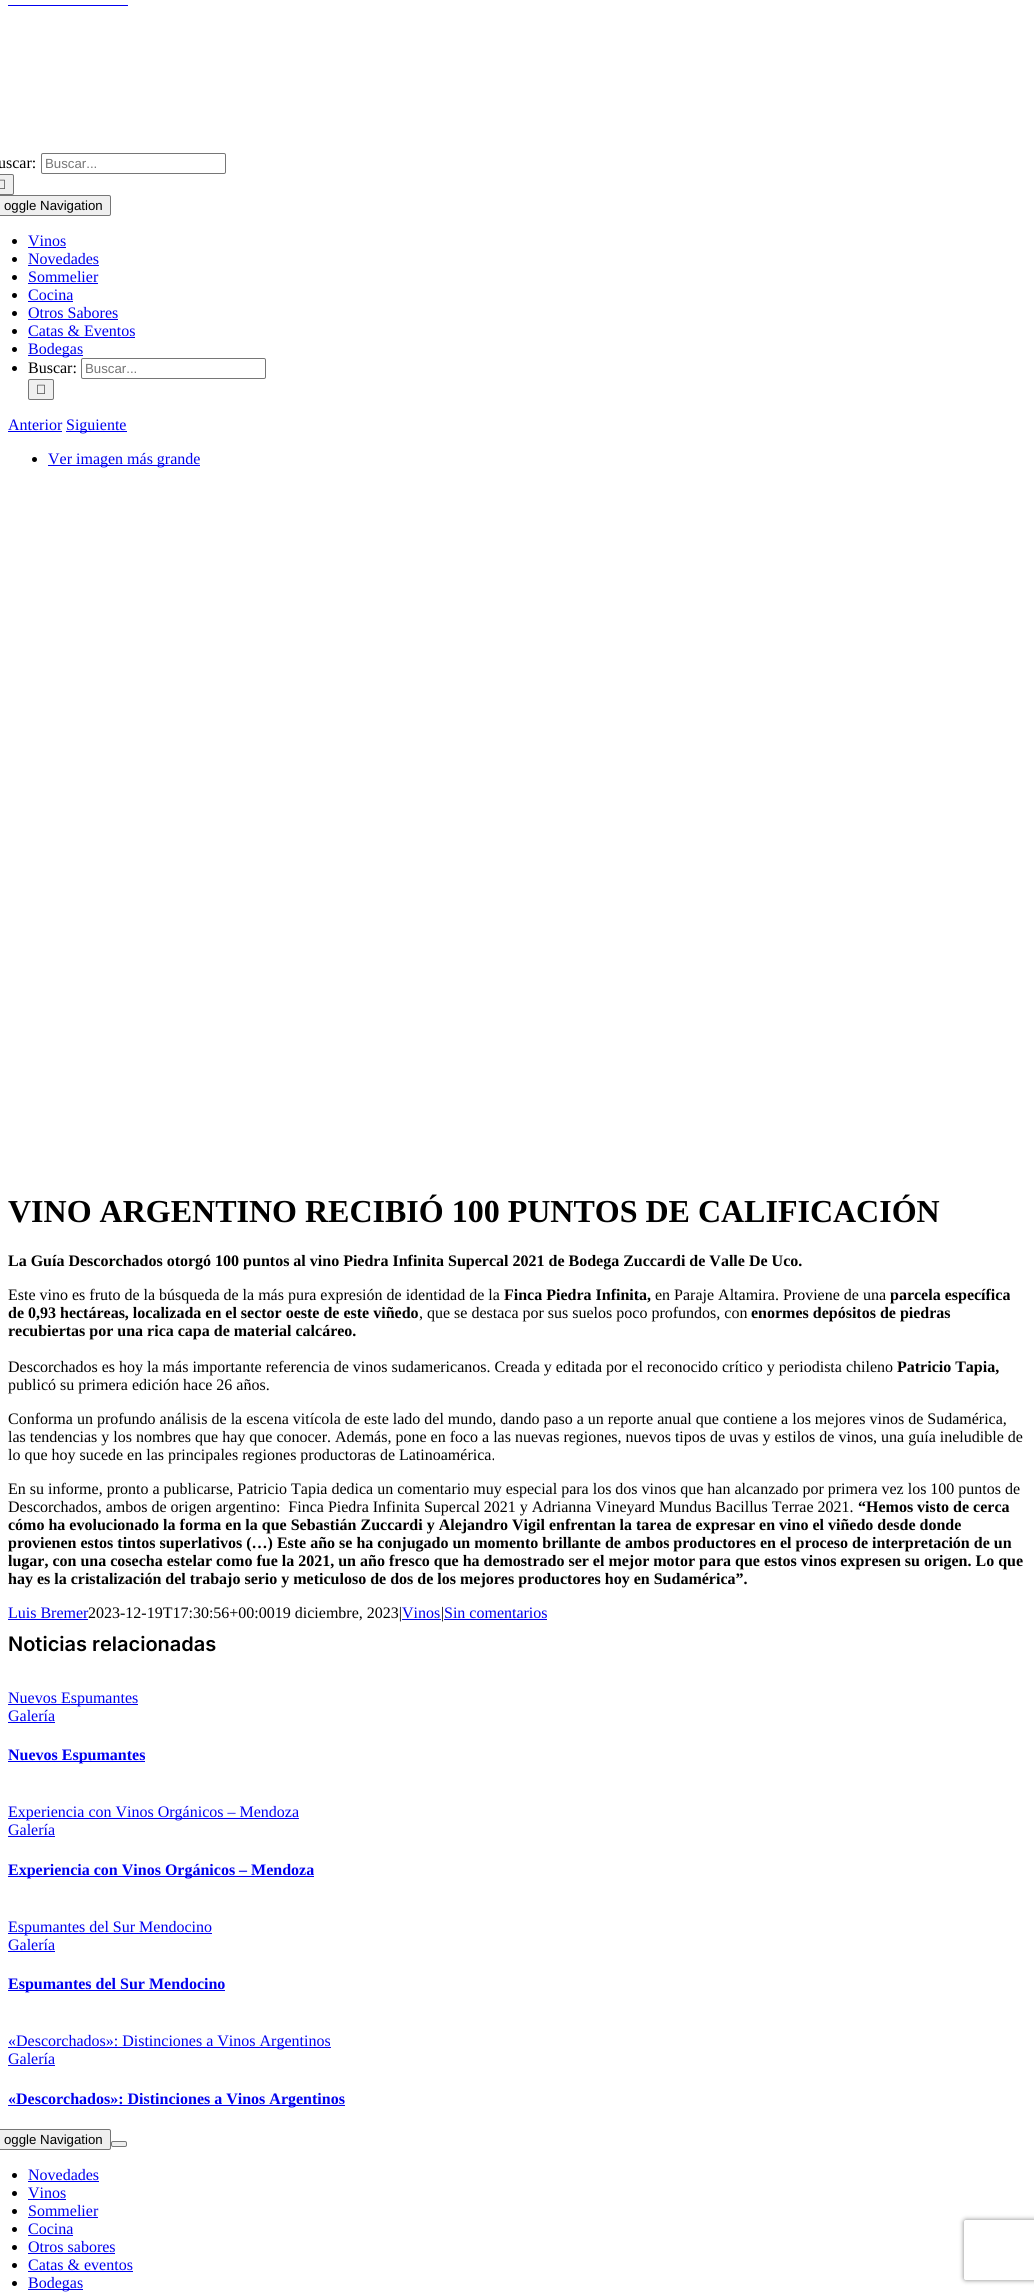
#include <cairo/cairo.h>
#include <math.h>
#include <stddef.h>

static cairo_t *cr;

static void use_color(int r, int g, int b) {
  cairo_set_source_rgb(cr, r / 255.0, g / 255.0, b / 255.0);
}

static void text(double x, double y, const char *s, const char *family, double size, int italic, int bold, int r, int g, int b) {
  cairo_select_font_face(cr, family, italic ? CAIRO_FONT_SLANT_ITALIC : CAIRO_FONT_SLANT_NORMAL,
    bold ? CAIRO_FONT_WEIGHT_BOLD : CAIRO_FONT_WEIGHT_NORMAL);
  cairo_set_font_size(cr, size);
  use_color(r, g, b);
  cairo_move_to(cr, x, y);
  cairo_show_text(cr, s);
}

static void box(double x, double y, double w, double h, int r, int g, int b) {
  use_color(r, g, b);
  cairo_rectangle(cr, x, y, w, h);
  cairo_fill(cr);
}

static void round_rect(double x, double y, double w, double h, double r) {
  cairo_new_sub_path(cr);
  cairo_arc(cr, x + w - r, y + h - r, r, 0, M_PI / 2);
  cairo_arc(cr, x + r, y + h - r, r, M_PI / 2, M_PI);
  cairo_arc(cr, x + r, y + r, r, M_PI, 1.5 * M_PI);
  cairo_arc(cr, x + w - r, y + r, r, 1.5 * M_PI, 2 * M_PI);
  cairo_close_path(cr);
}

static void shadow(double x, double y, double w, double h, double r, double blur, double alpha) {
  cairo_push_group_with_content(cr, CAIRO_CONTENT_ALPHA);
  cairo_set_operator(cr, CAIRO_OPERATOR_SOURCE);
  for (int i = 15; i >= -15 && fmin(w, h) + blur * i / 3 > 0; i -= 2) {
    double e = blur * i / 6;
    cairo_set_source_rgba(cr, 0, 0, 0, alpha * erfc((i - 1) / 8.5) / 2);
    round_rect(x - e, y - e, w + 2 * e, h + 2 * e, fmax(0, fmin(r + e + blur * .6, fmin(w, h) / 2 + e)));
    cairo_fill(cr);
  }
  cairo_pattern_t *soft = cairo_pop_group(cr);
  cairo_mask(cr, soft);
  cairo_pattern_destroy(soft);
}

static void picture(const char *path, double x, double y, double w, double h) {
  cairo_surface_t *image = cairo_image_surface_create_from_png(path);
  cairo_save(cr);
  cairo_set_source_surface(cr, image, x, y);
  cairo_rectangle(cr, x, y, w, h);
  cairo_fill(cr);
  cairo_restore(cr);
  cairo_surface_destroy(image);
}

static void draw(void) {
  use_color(255, 255, 255);
  cairo_paint(cr);
  box(8, 5, 120, 1, 0, 0, 238);
  round_rect(41.5, 153.5, 184, 20, 1.5);
  use_color(118, 118, 118);
  cairo_set_line_width(cr, 1);
  cairo_stroke(cr);
  use_color(239, 239, 239);
  round_rect(-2.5, 174.5, 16, 20, 1.5);
  cairo_fill_preserve(cr);
  use_color(118, 118, 118);
  cairo_stroke(cr);
  picture("img_01.png", 0, 179, 5, 10);
  use_color(239, 239, 239);
  round_rect(-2.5, 195.5, 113, 20, 1.5);
  cairo_fill_preserve(cr);
  use_color(118, 118, 118);
  cairo_stroke(cr);
  use_color(0, 0, 0);
  cairo_arc(cr, 14.5, 241.5, 2.5, 0, 2 * M_PI);
  cairo_fill(cr);
  box(28, 247, 38, 1, 0, 0, 238);
  use_color(0, 0, 0);
  cairo_arc(cr, 14.5, 259.5, 2.5, 0, 2 * M_PI);
  cairo_fill(cr);
  box(28, 265, 71, 1, 0, 0, 238);
  use_color(0, 0, 0);
  cairo_arc(cr, 14.5, 277.5, 2.5, 0, 2 * M_PI);
  cairo_fill(cr);
  box(28, 283, 70, 1, 0, 0, 238);
  use_color(0, 0, 0);
  cairo_arc(cr, 14.5, 295.5, 2.5, 0, 2 * M_PI);
  cairo_fill(cr);
  box(28, 301, 45, 1, 0, 0, 238);
  use_color(0, 0, 0);
  cairo_arc(cr, 14.5, 313.5, 2.5, 0, 2 * M_PI);
  cairo_fill(cr);
  box(28, 319, 90, 1, 0, 0, 238);
  use_color(0, 0, 0);
  cairo_arc(cr, 14.5, 331.5, 2.5, 0, 2 * M_PI);
  cairo_fill(cr);
  box(28, 337, 107, 1, 0, 0, 238);
  use_color(0, 0, 0);
  cairo_arc(cr, 14.5, 349.5, 2.5, 0, 2 * M_PI);
  cairo_fill(cr);
  box(28, 355, 55, 1, 0, 0, 238);
  use_color(0, 0, 0);
  cairo_arc(cr, 14.5, 368.5, 2.5, 0, 2 * M_PI);
  cairo_fill(cr);
  round_rect(81.5, 358.5, 184, 20, 1.5);
  use_color(118, 118, 118);
  cairo_stroke(cr);
  use_color(239, 239, 239);
  round_rect(28.5, 379.5, 25, 20, 1.5);
  cairo_fill_preserve(cr);
  use_color(118, 118, 118);
  cairo_stroke(cr);
  picture("img_02.png", 37, 384, 8, 10);
  box(8, 431, 54, 1, 0, 0, 238);
  box(66, 431, 61, 1, 0, 0, 238);
  use_color(0, 0, 0);
  cairo_arc(cr, 34.5, 459.5, 2.5, 0, 2 * M_PI);
  cairo_fill(cr);
  box(48, 465, 152, 1, 0, 0, 238);
  box(8, 1619, 80, 1, 0, 0, 238);
  box(402, 1619, 39, 1, 0, 0, 238);
  box(444, 1619, 103, 1, 0, 0, 238);
  box(8, 1704, 130, 1, 0, 0, 238);
  box(8, 1722, 47, 1, 0, 0, 238);
  box(8, 1761, 137, 1, 0, 0, 238);
  box(8, 1818, 291, 1, 0, 0, 238);
  box(8, 1836, 47, 1, 0, 0, 238);
  box(8, 1876, 306, 1, 0, 0, 238);
  box(8, 1933, 204, 1, 0, 0, 238);
  box(8, 1951, 47, 1, 0, 0, 238);
  box(8, 1990, 217, 1, 0, 0, 238);
  box(8, 2047, 323, 1, 0, 0, 238);
  box(8, 2065, 47, 1, 0, 0, 238);
  box(8, 2105, 337, 1, 0, 0, 238);
  use_color(239, 239, 239);
  round_rect(-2.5, 2129.5, 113, 20, 1.5);
  cairo_fill_preserve(cr);
  use_color(118, 118, 118);
  cairo_stroke(cr);
  use_color(239, 239, 239);
  round_rect(111.5, 2141.5, 15, 5, 1.5);
  cairo_fill_preserve(cr);
  use_color(118, 118, 118);
  cairo_stroke(cr);
  use_color(0, 0, 0);
  cairo_arc(cr, 14.5, 2175.5, 2.5, 0, 2 * M_PI);
  cairo_fill(cr);
  box(28, 2181, 71, 1, 0, 0, 238);
  use_color(0, 0, 0);
  cairo_arc(cr, 14.5, 2193.5, 2.5, 0, 2 * M_PI);
  cairo_fill(cr);
  box(28, 2199, 38, 1, 0, 0, 238);
  use_color(0, 0, 0);
  cairo_arc(cr, 14.5, 2211.5, 2.5, 0, 2 * M_PI);
  cairo_fill(cr);
  box(28, 2217, 70, 1, 0, 0, 238);
  use_color(0, 0, 0);
  cairo_arc(cr, 14.5, 2229.5, 2.5, 0, 2 * M_PI);
  cairo_fill(cr);
  box(28, 2235, 45, 1, 0, 0, 238);
  use_color(0, 0, 0);
  cairo_arc(cr, 14.5, 2247.5, 2.5, 0, 2 * M_PI);
  cairo_fill(cr);
  box(28, 2253, 87, 1, 0, 0, 238);
  use_color(0, 0, 0);
  cairo_arc(cr, 14.5, 2265.5, 2.5, 0, 2 * M_PI);
  cairo_fill(cr);
  box(28, 2271, 105, 1, 0, 0, 238);
  use_color(0, 0, 0);
  cairo_arc(cr, 14.5, 2283.5, 2.5, 0, 2 * M_PI);
  cairo_fill(cr);
  box(28, 2289, 55, 1, 0, 0, 238);
  cairo_save(cr);
  cairo_set_fill_rule(cr, CAIRO_FILL_RULE_EVEN_ODD);
  cairo_new_path(cr);
  cairo_move_to(cr, 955, 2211);
  cairo_line_to(cr, 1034, 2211);
  cairo_line_to(cr, 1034, 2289);
  cairo_line_to(cr, 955, 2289);
  cairo_close_path(cr);
  cairo_move_to(cr, 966, 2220);
  cairo_line_to(cr, 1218, 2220);
  cairo_curve_to(cr, 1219, 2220, 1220, 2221, 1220, 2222);
  cairo_line_to(cr, 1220, 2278);
  cairo_curve_to(cr, 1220, 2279, 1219, 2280, 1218, 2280);
  cairo_line_to(cr, 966, 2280);
  cairo_curve_to(cr, 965, 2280, 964, 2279, 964, 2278);
  cairo_line_to(cr, 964, 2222);
  cairo_curve_to(cr, 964, 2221, 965, 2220, 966, 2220);
  cairo_close_path(cr);
  cairo_clip(cr);
  use_color(128, 128, 128);
  shadow(964, 2220, 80, 60, 2, 2.5, 1);
  cairo_restore(cr);
  text(-2, 168, "uscar:", "Liberation Serif", 16, 0, 0, 0, 0, 0);
  text(45, 168, "Buscar...", "Liberation Sans", 13.25, 0, 0, 117, 117, 117);
  text(4, 210, "oggle Navigation", "Liberation Sans", 13.25, 0, 0, 0, 0, 0);
  text(28, 246, "Vinos", "Liberation Serif", 16, 0, 0, 0, 0, 238);
  text(28, 264, "Novedades", "Liberation Serif", 16, 0, 0, 0, 0, 238);
  text(28, 282, "Sommelier", "Liberation Serif", 16, 0, 0, 0, 0, 238);
  text(28, 300, "Cocina", "Liberation Serif", 16, 0, 0, 0, 0, 238);
  text(28, 318, "Otros Sabores", "Liberation Serif", 16, 0, 0, 0, 0, 238);
  text(28, 336, "Catas & Eventos", "Liberation Serif", 16, 0, 0, 0, 0, 238);
  text(28, 354, "Bodegas", "Liberation Serif", 16, 0, 0, 0, 0, 238);
  text(28, 373, "Buscar:", "Liberation Serif", 16, 0, 0, 0, 0, 0);
  text(85, 373, "Buscar...", "Liberation Sans", 13.25, 0, 0, 117, 117, 117);
  text(8, 430, "Anterior", "Liberation Serif", 16, 0, 0, 0, 0, 238);
  text(66, 430, "Siguiente", "Liberation Serif", 16, 0, 0, 0, 0, 238);
  text(48, 464, "Ver imagen más grande", "Liberation Serif", 16, 0, 0, 0, 0, 238);
  text(8, 1222, "VINO ARGENTINO RECIBIÓ 100 PUNTOS DE CALIFICACIÓN", "Liberation Serif", 32, 0, 1, 0, 0, 0);
  text(8, 1266, "La Guía Descorchados otorgó 100 puntos al vino Piedra Infinita Supercal 2021 de Bodega Zuccardi de Valle De Uco.", "Liberation Serif", 16, 0, 1, 0, 0, 0);
  text(8, 1300, "Este vino es fruto de la búsqueda de la más pura expresión de identidad de la", "Liberation Serif", 16, 0, 0, 0, 0, 0);
  text(504, 1300, "Finca Piedra Infinita,", "Liberation Serif", 16, 0, 1, 0, 0, 0);
  text(655, 1300, "en Paraje Altamira. Proviene de una", "Liberation Serif", 16, 0, 0, 0, 0, 0);
  text(890, 1300, "parcela específica", "Liberation Serif", 16, 0, 1, 0, 0, 0);
  text(8, 1318, "de 0,93 hectáreas, localizada en el sector oeste de este viñedo", "Liberation Serif", 16, 0, 1, 0, 0, 0);
  text(419, 1318, ", que se destaca por sus suelos poco profundos, con", "Liberation Serif", 16, 0, 0, 0, 0, 0);
  text(751, 1318, "enormes depósitos de piedras", "Liberation Serif", 16, 0, 1, 0, 0, 0);
  text(8, 1336, "recubiertas por una rica capa de material calcáreo.", "Liberation Serif", 16, 0, 1, 0, 0, 0);
  text(8, 1372, "Descorchados es hoy la más importante referencia de vinos sudamericanos. Creada y editada por el reconocido crítico y periodista chileno", "Liberation Serif", 16, 0, 0, 0, 0, 0);
  text(897, 1372, "Patricio Tapia,", "Liberation Serif", 16, 0, 1, 0, 0, 0);
  text(8, 1390, "publicó su primera edición hace 26 años.", "Liberation Serif", 16, 0, 0, 0, 0, 0);
  text(8, 1424, "Conforma un profundo análisis de la escena vitícola de este lado del mundo, dando paso a un reporte anual que contiene a los mejores vinos de Sudamérica,", "Liberation Serif", 16, 0, 0, 0, 0, 0);
  text(8, 1442, "las tendencias y los nombres que hay que conocer. Además, pone en foco a las nuevas regiones, nuevos tipos de uvas y estilos de vinos, una guía ineludible de", "Liberation Serif", 16, 0, 0, 0, 0, 0);
  text(8, 1460, "lo que hoy sucede en las principales regiones productoras de Latinoamérica.", "Liberation Serif", 16, 0, 0, 0, 0, 0);
  text(8, 1494, "En su informe, pronto a publicarse, Patricio Tapia dedica un comentario muy especial para los dos vinos que han alcanzado por primera vez los 100 puntos de", "Liberation Serif", 16, 0, 0, 0, 0, 0);
  text(8, 1512, "Descorchados, ambos de origen argentino:  Finca Piedra Infinita Supercal 2021 y Adrianna Vineyard Mundus Bacillus Terrae 2021.", "Liberation Serif", 16, 0, 0, 0, 0, 0);
  text(858, 1512, "“Hemos visto de cerca", "Liberation Serif", 16, 0, 1, 0, 0, 0);
  text(8, 1530, "cómo ha evolucionado la forma en la que Sebastián Zuccardi y Alejandro Vigil enfrentan la tarea de expresar en vino el viñedo desde donde", "Liberation Serif", 16, 0, 1, 0, 0, 0);
  text(8, 1548, "provienen estos tintos superlativos (…) Este año se ha conjugado un momento brillante de ambos productores en el proceso de interpretación de un", "Liberation Serif", 16, 0, 1, 0, 0, 0);
  text(8, 1566, "lugar, con una cosecha estelar como fue la 2021, un año fresco que ha demostrado ser el mejor motor para que estos vinos expresen su origen. Lo que", "Liberation Serif", 16, 0, 1, 0, 0, 0);
  text(8, 1584, "hay es la cristalización del trabajo serio y meticuloso de dos de los mejores productores hoy en Sudamérica”.", "Liberation Serif", 16, 0, 1, 0, 0, 0);
  text(8, 1618, "Luis Bremer", "Liberation Serif", 16, 0, 0, 0, 0, 238);
  text(88, 1618, "2023-12-19T17:30:56+00:0019 diciembre, 2023|", "Liberation Serif", 16, 0, 0, 0, 0, 0);
  text(402, 1618, "Vinos", "Liberation Serif", 16, 0, 0, 0, 0, 238);
  text(441, 1618, "|", "Liberation Serif", 16, 0, 0, 0, 0, 0);
  text(444, 1618, "Sin comentarios", "Liberation Serif", 16, 0, 0, 0, 0, 238);
  text(8, 1651, "Noticias relacionadas", "Inter SemiBold", 20, 0, 0, 0, 0, 0);
  text(8, 1703, "Nuevos Espumantes", "Liberation Serif", 16, 0, 0, 0, 0, 238);
  text(8, 1721, "Galería", "Liberation Serif", 16, 0, 0, 0, 0, 238);
  text(8, 1760, "Nuevos Espumantes", "Liberation Serif", 16, 0, 1, 0, 0, 238);
  text(8, 1817, "Experiencia con Vinos Orgánicos – Mendoza", "Liberation Serif", 16, 0, 0, 0, 0, 238);
  text(8, 1835, "Galería", "Liberation Serif", 16, 0, 0, 0, 0, 238);
  text(8, 1875, "Experiencia con Vinos Orgánicos – Mendoza", "Liberation Serif", 16, 0, 1, 0, 0, 238);
  text(8, 1932, "Espumantes del Sur Mendocino", "Liberation Serif", 16, 0, 0, 0, 0, 238);
  text(8, 1950, "Galería", "Liberation Serif", 16, 0, 0, 0, 0, 238);
  text(8, 1989, "Espumantes del Sur Mendocino", "Liberation Serif", 16, 0, 1, 0, 0, 238);
  text(8, 2046, "«Descorchados»: Distinciones a Vinos Argentinos", "Liberation Serif", 16, 0, 0, 0, 0, 238);
  text(8, 2064, "Galería", "Liberation Serif", 16, 0, 0, 0, 0, 238);
  text(8, 2104, "«Descorchados»: Distinciones a Vinos Argentinos", "Liberation Serif", 16, 0, 1, 0, 0, 238);
  text(4, 2144, "oggle Navigation", "Liberation Sans", 13.25, 0, 0, 0, 0, 0);
  text(28, 2180, "Novedades", "Liberation Serif", 16, 0, 0, 0, 0, 238);
  text(28, 2198, "Vinos", "Liberation Serif", 16, 0, 0, 0, 0, 238);
  text(28, 2216, "Sommelier", "Liberation Serif", 16, 0, 0, 0, 0, 238);
  text(28, 2234, "Cocina", "Liberation Serif", 16, 0, 0, 0, 0, 238);
  text(28, 2252, "Otros sabores", "Liberation Serif", 16, 0, 0, 0, 0, 238);
  text(28, 2270, "Catas & eventos", "Liberation Serif", 16, 0, 0, 0, 0, 238);
  text(28, 2288, "Bodegas", "Liberation Serif", 16, 0, 0, 0, 0, 238);
}

int main(void) {
  cairo_surface_t *surface = cairo_image_surface_create(CAIRO_FORMAT_RGB24, 1034, 2294);
  cr = cairo_create(surface);
  cairo_font_options_t *options = cairo_font_options_create();
  cairo_font_options_set_hint_metrics(options, CAIRO_HINT_METRICS_OFF);
  cairo_font_options_set_hint_style(options, CAIRO_HINT_STYLE_NONE);
  cairo_set_font_options(cr, options);
  cairo_set_miter_limit(cr, 4);
  draw();
  cairo_surface_write_to_png(surface, "out.png");
  cairo_font_options_destroy(options);
  cairo_destroy(cr);
  cairo_surface_destroy(surface);
  return 0;
}
